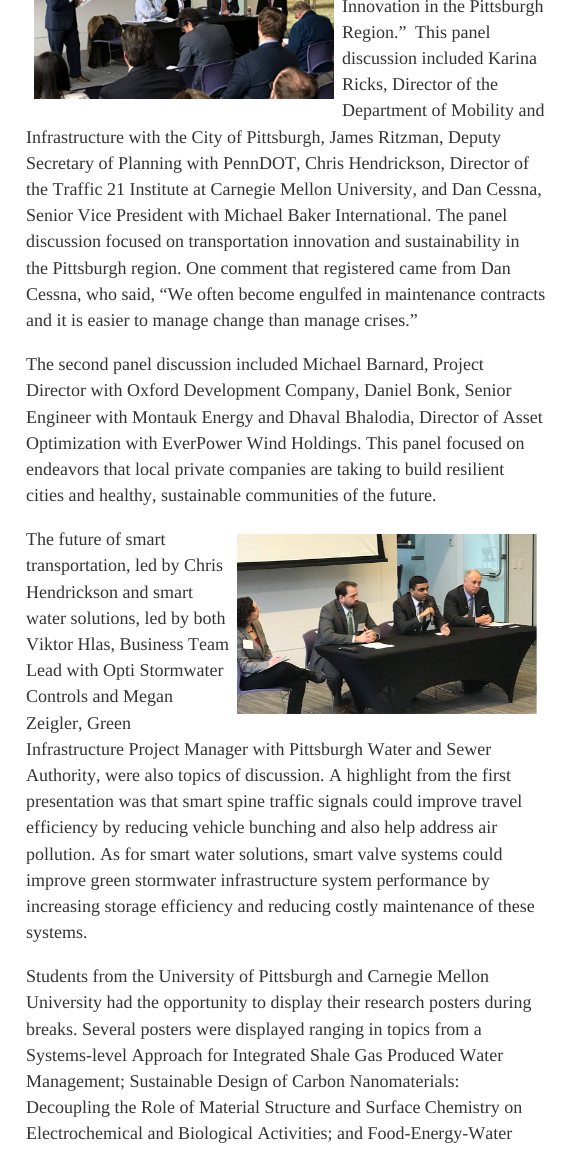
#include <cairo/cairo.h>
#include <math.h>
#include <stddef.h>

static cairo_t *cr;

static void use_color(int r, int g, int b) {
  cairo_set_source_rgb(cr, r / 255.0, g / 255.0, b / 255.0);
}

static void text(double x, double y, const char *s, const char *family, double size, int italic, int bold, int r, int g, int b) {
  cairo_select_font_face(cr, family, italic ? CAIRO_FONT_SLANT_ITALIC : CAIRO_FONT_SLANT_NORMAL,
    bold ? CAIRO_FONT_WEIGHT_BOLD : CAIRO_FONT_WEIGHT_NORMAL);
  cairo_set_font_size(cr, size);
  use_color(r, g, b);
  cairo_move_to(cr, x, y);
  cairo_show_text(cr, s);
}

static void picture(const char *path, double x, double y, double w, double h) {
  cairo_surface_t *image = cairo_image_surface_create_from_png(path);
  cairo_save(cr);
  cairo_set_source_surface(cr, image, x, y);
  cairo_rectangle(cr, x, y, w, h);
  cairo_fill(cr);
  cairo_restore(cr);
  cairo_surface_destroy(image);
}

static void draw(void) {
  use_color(255, 255, 255);
  cairo_paint(cr);
  picture("img_01.png", 34, 0, 300, 99);
  picture("img_02.png", 237, 534, 300, 180);
  text(342, 12, "Innovation in the Pittsburgh", "Liberation Serif", 18, 0, 0, 51, 51, 51);
  text(342, 38, "Region.”", "Liberation Serif", 18, 0, 0, 51, 51, 51);
  text(415, 38, "This panel", "Liberation Serif", 18, 0, 0, 51, 51, 51);
  text(342, 64, "discussion included Karina", "Liberation Serif", 18, 0, 0, 51, 51, 51);
  text(342, 90, "Ricks, Director of the", "Liberation Serif", 18, 0, 0, 51, 51, 51);
  text(342, 116, "Department of Mobility and", "Liberation Serif", 18, 0, 0, 51, 51, 51);
  text(26, 143, "Infrastructure with the City of Pittsburgh, James Ritzman, Deputy", "Liberation Serif", 18, 0, 0, 51, 51, 51);
  text(26, 169, "Secretary of Planning with PennDOT, Chris Hendrickson, Director of", "Liberation Serif", 18, 0, 0, 51, 51, 51);
  text(26, 195, "the Traffic 21 Institute at Carnegie Mellon University, and Dan Cessna,", "Liberation Serif", 18, 0, 0, 51, 51, 51);
  text(26, 221, "Senior Vice President with Michael Baker International. The panel", "Liberation Serif", 18, 0, 0, 51, 51, 51);
  text(26, 247, "discussion focused on transportation innovation and sustainability in", "Liberation Serif", 18, 0, 0, 51, 51, 51);
  text(26, 274, "the Pittsburgh region. One comment that registered came from Dan", "Liberation Serif", 18, 0, 0, 51, 51, 51);
  text(26, 300, "Cessna, who said, “We often become engulfed in maintenance contracts", "Liberation Serif", 18, 0, 0, 51, 51, 51);
  text(26, 326, "and it is easier to manage change than manage crises.”", "Liberation Serif", 18, 0, 0, 51, 51, 51);
  text(26, 370, "The second panel discussion included Michael Barnard, Project", "Liberation Serif", 18, 0, 0, 51, 51, 51);
  text(26, 396, "Director with Oxford Development Company, Daniel Bonk, Senior", "Liberation Serif", 18, 0, 0, 51, 51, 51);
  text(26, 423, "Engineer with Montauk Energy and Dhaval Bhalodia, Director of Asset", "Liberation Serif", 18, 0, 0, 51, 51, 51);
  text(26, 449, "Optimization with EverPower Wind Holdings. This panel focused on", "Liberation Serif", 18, 0, 0, 51, 51, 51);
  text(26, 475, "endeavors that local private companies are taking to build resilient", "Liberation Serif", 18, 0, 0, 51, 51, 51);
  text(26, 501, "cities and healthy, sustainable communities of the future.", "Liberation Serif", 18, 0, 0, 51, 51, 51);
  text(26, 545, "The future of smart", "Liberation Serif", 18, 0, 0, 51, 51, 51);
  text(26, 571, "transportation, led by Chris", "Liberation Serif", 18, 0, 0, 51, 51, 51);
  text(26, 598, "Hendrickson and smart", "Liberation Serif", 18, 0, 0, 51, 51, 51);
  text(26, 624, "water solutions, led by both", "Liberation Serif", 18, 0, 0, 51, 51, 51);
  text(26, 650, "Viktor Hlas, Business Team", "Liberation Serif", 18, 0, 0, 51, 51, 51);
  text(26, 676, "Lead with Opti Stormwater", "Liberation Serif", 18, 0, 0, 51, 51, 51);
  text(26, 702, "Controls and Megan", "Liberation Serif", 18, 0, 0, 51, 51, 51);
  text(26, 729, "Zeigler, Green", "Liberation Serif", 18, 0, 0, 51, 51, 51);
  text(26, 755, "Infrastructure Project Manager with Pittsburgh Water and Sewer", "Liberation Serif", 18, 0, 0, 51, 51, 51);
  text(26, 781, "Authority, were also topics of discussion. A highlight from the first", "Liberation Serif", 18, 0, 0, 51, 51, 51);
  text(26, 807, "presentation was that smart spine traffic signals could improve travel", "Liberation Serif", 18, 0, 0, 51, 51, 51);
  text(26, 833, "efficiency by reducing vehicle bunching and also help address air", "Liberation Serif", 18, 0, 0, 51, 51, 51);
  text(26, 860, "pollution. As for smart water solutions, smart valve systems could", "Liberation Serif", 18, 0, 0, 51, 51, 51);
  text(26, 886, "improve green stormwater infrastructure system performance by", "Liberation Serif", 18, 0, 0, 51, 51, 51);
  text(26, 912, "increasing storage efficiency and reducing costly maintenance of these", "Liberation Serif", 18, 0, 0, 51, 51, 51);
  text(26, 938, "systems.", "Liberation Serif", 18, 0, 0, 51, 51, 51);
  text(26, 982, "Students from the University of Pittsburgh and Carnegie Mellon", "Liberation Serif", 18, 0, 0, 51, 51, 51);
  text(26, 1008, "University had the opportunity to display their research posters during", "Liberation Serif", 18, 0, 0, 51, 51, 51);
  text(26, 1035, "breaks. Several posters were displayed ranging in topics from a", "Liberation Serif", 18, 0, 0, 51, 51, 51);
  text(26, 1061, "Systems-level Approach for Integrated Shale Gas Produced Water", "Liberation Serif", 18, 0, 0, 51, 51, 51);
  text(26, 1087, "Management; Sustainable Design of Carbon Nanomaterials:", "Liberation Serif", 18, 0, 0, 51, 51, 51);
  text(26, 1113, "Decoupling the Role of Material Structure and Surface Chemistry on", "Liberation Serif", 18, 0, 0, 51, 51, 51);
  text(26, 1139, "Electrochemical and Biological Activities; and Food-Energy-Water", "Liberation Serif", 18, 0, 0, 51, 51, 51);
}

int main(void) {
  cairo_surface_t *surface = cairo_image_surface_create(CAIRO_FORMAT_RGB24, 571, 1156);
  cr = cairo_create(surface);
  cairo_font_options_t *options = cairo_font_options_create();
  cairo_font_options_set_hint_metrics(options, CAIRO_HINT_METRICS_OFF);
  cairo_font_options_set_hint_style(options, CAIRO_HINT_STYLE_NONE);
  cairo_set_font_options(cr, options);
  cairo_set_miter_limit(cr, 4);
  draw();
  cairo_surface_write_to_png(surface, "out.png");
  cairo_font_options_destroy(options);
  cairo_destroy(cr);
  cairo_surface_destroy(surface);
  return 0;
}
